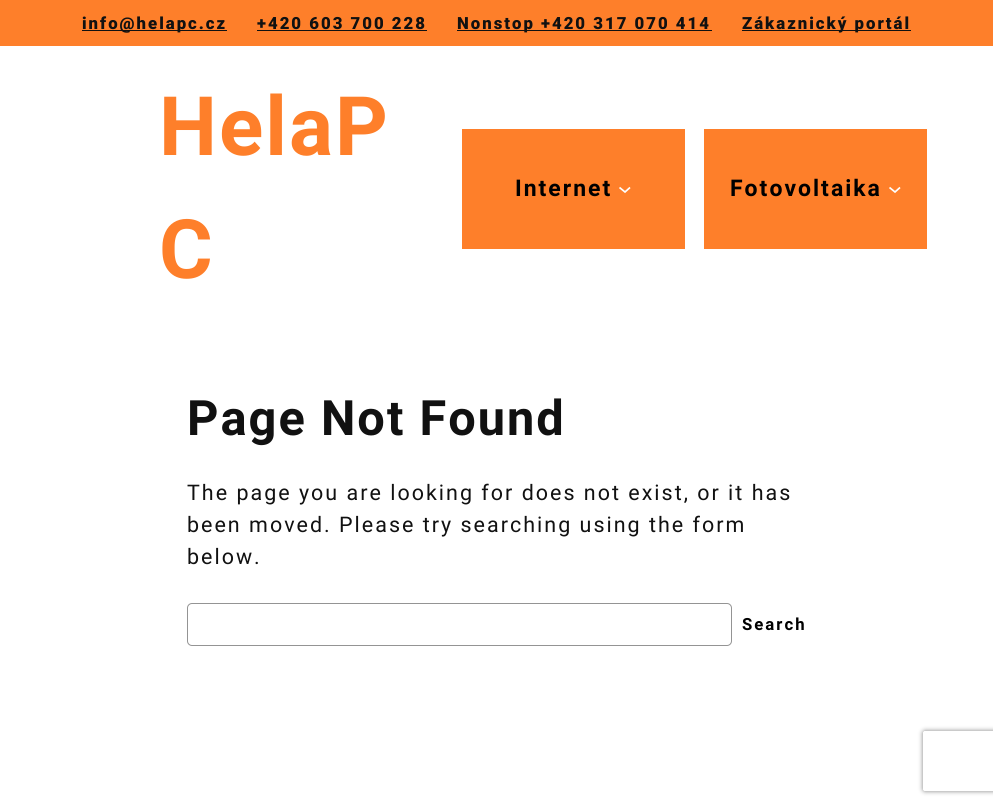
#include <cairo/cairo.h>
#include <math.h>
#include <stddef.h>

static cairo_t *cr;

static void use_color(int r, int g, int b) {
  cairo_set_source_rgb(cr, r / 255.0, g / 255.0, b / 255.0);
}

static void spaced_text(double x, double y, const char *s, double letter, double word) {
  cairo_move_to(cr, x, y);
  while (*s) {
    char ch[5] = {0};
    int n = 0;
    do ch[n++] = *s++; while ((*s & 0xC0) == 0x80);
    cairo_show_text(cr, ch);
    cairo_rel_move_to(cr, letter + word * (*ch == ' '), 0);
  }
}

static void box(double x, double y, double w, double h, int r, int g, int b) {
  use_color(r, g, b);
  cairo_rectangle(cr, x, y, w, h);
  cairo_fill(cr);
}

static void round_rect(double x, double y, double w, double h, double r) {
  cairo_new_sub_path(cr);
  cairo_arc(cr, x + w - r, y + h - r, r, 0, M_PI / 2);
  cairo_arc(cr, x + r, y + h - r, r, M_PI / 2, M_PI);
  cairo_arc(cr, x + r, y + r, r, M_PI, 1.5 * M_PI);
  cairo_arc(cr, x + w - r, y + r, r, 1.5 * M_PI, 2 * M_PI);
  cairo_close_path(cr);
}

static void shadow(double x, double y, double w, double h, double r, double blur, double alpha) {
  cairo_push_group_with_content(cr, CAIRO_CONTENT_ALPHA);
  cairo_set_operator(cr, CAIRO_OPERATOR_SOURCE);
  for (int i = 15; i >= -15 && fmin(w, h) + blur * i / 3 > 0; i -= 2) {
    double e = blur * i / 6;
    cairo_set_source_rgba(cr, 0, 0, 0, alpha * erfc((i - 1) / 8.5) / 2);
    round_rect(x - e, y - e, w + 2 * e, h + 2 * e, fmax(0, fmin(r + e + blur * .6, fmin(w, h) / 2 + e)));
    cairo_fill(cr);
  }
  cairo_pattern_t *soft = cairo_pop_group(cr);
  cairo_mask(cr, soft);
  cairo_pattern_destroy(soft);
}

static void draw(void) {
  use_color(255, 255, 255);
  cairo_paint(cr);
  box(0, 0, 993, 46, 254, 127, 42);
  box(82, 30, 145, 1, 17, 17, 17);
  box(257, 30, 170, 1, 17, 17, 17);
  box(457, 30, 255, 1, 17, 17, 17);
  box(742, 30, 169, 1, 17, 17, 17);
  box(462, 129, 223, 120, 254, 127, 42);
  cairo_new_path(cr);
  cairo_move_to(cr, 619.5, 187.5);
  cairo_line_to(cr, 625, 192);
  cairo_line_to(cr, 630, 187.5);
  use_color(255, 255, 255);
  cairo_set_line_width(cr, 1.7);
  cairo_stroke(cr);
  box(704, 129, 223, 120, 254, 127, 42);
  cairo_new_path(cr);
  cairo_move_to(cr, 889.5, 187.5);
  cairo_line_to(cr, 895, 192);
  cairo_line_to(cr, 900, 187.5);
  use_color(255, 255, 255);
  cairo_stroke(cr);
  round_rect(187.5, 603.5, 544, 42, 4.5);
  use_color(148, 148, 148);
  cairo_set_line_width(cr, 1);
  cairo_stroke(cr);
  cairo_save(cr);
  cairo_set_fill_rule(cr, CAIRO_FILL_RULE_EVEN_ODD);
  cairo_new_path(cr);
  cairo_move_to(cr, 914, 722);
  cairo_line_to(cr, 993, 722);
  cairo_line_to(cr, 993, 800);
  cairo_line_to(cr, 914, 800);
  cairo_close_path(cr);
  cairo_move_to(cr, 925, 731);
  cairo_line_to(cr, 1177, 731);
  cairo_curve_to(cr, 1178, 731, 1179, 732, 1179, 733);
  cairo_line_to(cr, 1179, 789);
  cairo_curve_to(cr, 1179, 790, 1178, 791, 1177, 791);
  cairo_line_to(cr, 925, 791);
  cairo_curve_to(cr, 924, 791, 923, 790, 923, 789);
  cairo_line_to(cr, 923, 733);
  cairo_curve_to(cr, 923, 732, 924, 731, 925, 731);
  cairo_close_path(cr);
  cairo_clip(cr);
  use_color(128, 128, 128);
  shadow(923, 731, 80, 60, 2, 2.5, 1);
  cairo_restore(cr);
  cairo_select_font_face(cr, "Roboto Black", CAIRO_FONT_SLANT_NORMAL, CAIRO_FONT_WEIGHT_NORMAL);
  cairo_set_font_size(cr, 16.75);
  use_color(17, 17, 17);
  spaced_text(82, 29, "info@helapc.cz", 2, 0);
  spaced_text(257, 29, "+420 603 700 228", 2, 0);
  spaced_text(457, 29, "Nonstop +420 317 070 414", 2, 0);
  spaced_text(742, 29, "Zákaznický portál", 2, 0);
  cairo_select_font_face(cr, "Roboto", CAIRO_FONT_SLANT_NORMAL, CAIRO_FONT_WEIGHT_BOLD);
  cairo_set_font_size(cr, 82);
  use_color(254, 127, 42);
  spaced_text(159, 155, "HelaP", 2, 0);
  spaced_text(159, 278, "C", 2, 0);
  cairo_set_font_size(cr, 23);
  use_color(0, 0, 0);
  spaced_text(515, 196, "Internet", 2, 0);
  spaced_text(730, 196, "Fotovoltaika", 2, 0);
  cairo_set_font_size(cr, 48.75);
  use_color(17, 17, 17);
  spaced_text(187, 435, "Page Not Found", 2, 0);
  cairo_select_font_face(cr, "Roboto", CAIRO_FONT_SLANT_NORMAL, CAIRO_FONT_WEIGHT_NORMAL);
  cairo_set_font_size(cr, 21.5);
  spaced_text(187, 500, "The page you are looking for does not exist, or it has", 2, 0);
  spaced_text(187, 532, "been moved. Please try searching using the form", 2, 0);
  spaced_text(187, 564, "below.", 2, 0);
  cairo_select_font_face(cr, "Roboto", CAIRO_FONT_SLANT_NORMAL, CAIRO_FONT_WEIGHT_BOLD);
  cairo_set_font_size(cr, 16.75);
  use_color(0, 0, 0);
  spaced_text(742, 630, "Search", 2, 0);
}

int main(void) {
  cairo_surface_t *surface = cairo_image_surface_create(CAIRO_FORMAT_RGB24, 993, 805);
  cr = cairo_create(surface);
  cairo_font_options_t *options = cairo_font_options_create();
  cairo_font_options_set_hint_metrics(options, CAIRO_HINT_METRICS_OFF);
  cairo_font_options_set_hint_style(options, CAIRO_HINT_STYLE_NONE);
  cairo_set_font_options(cr, options);
  cairo_set_miter_limit(cr, 4);
  draw();
  cairo_surface_write_to_png(surface, "out.png");
  cairo_font_options_destroy(options);
  cairo_destroy(cr);
  cairo_surface_destroy(surface);
  return 0;
}
